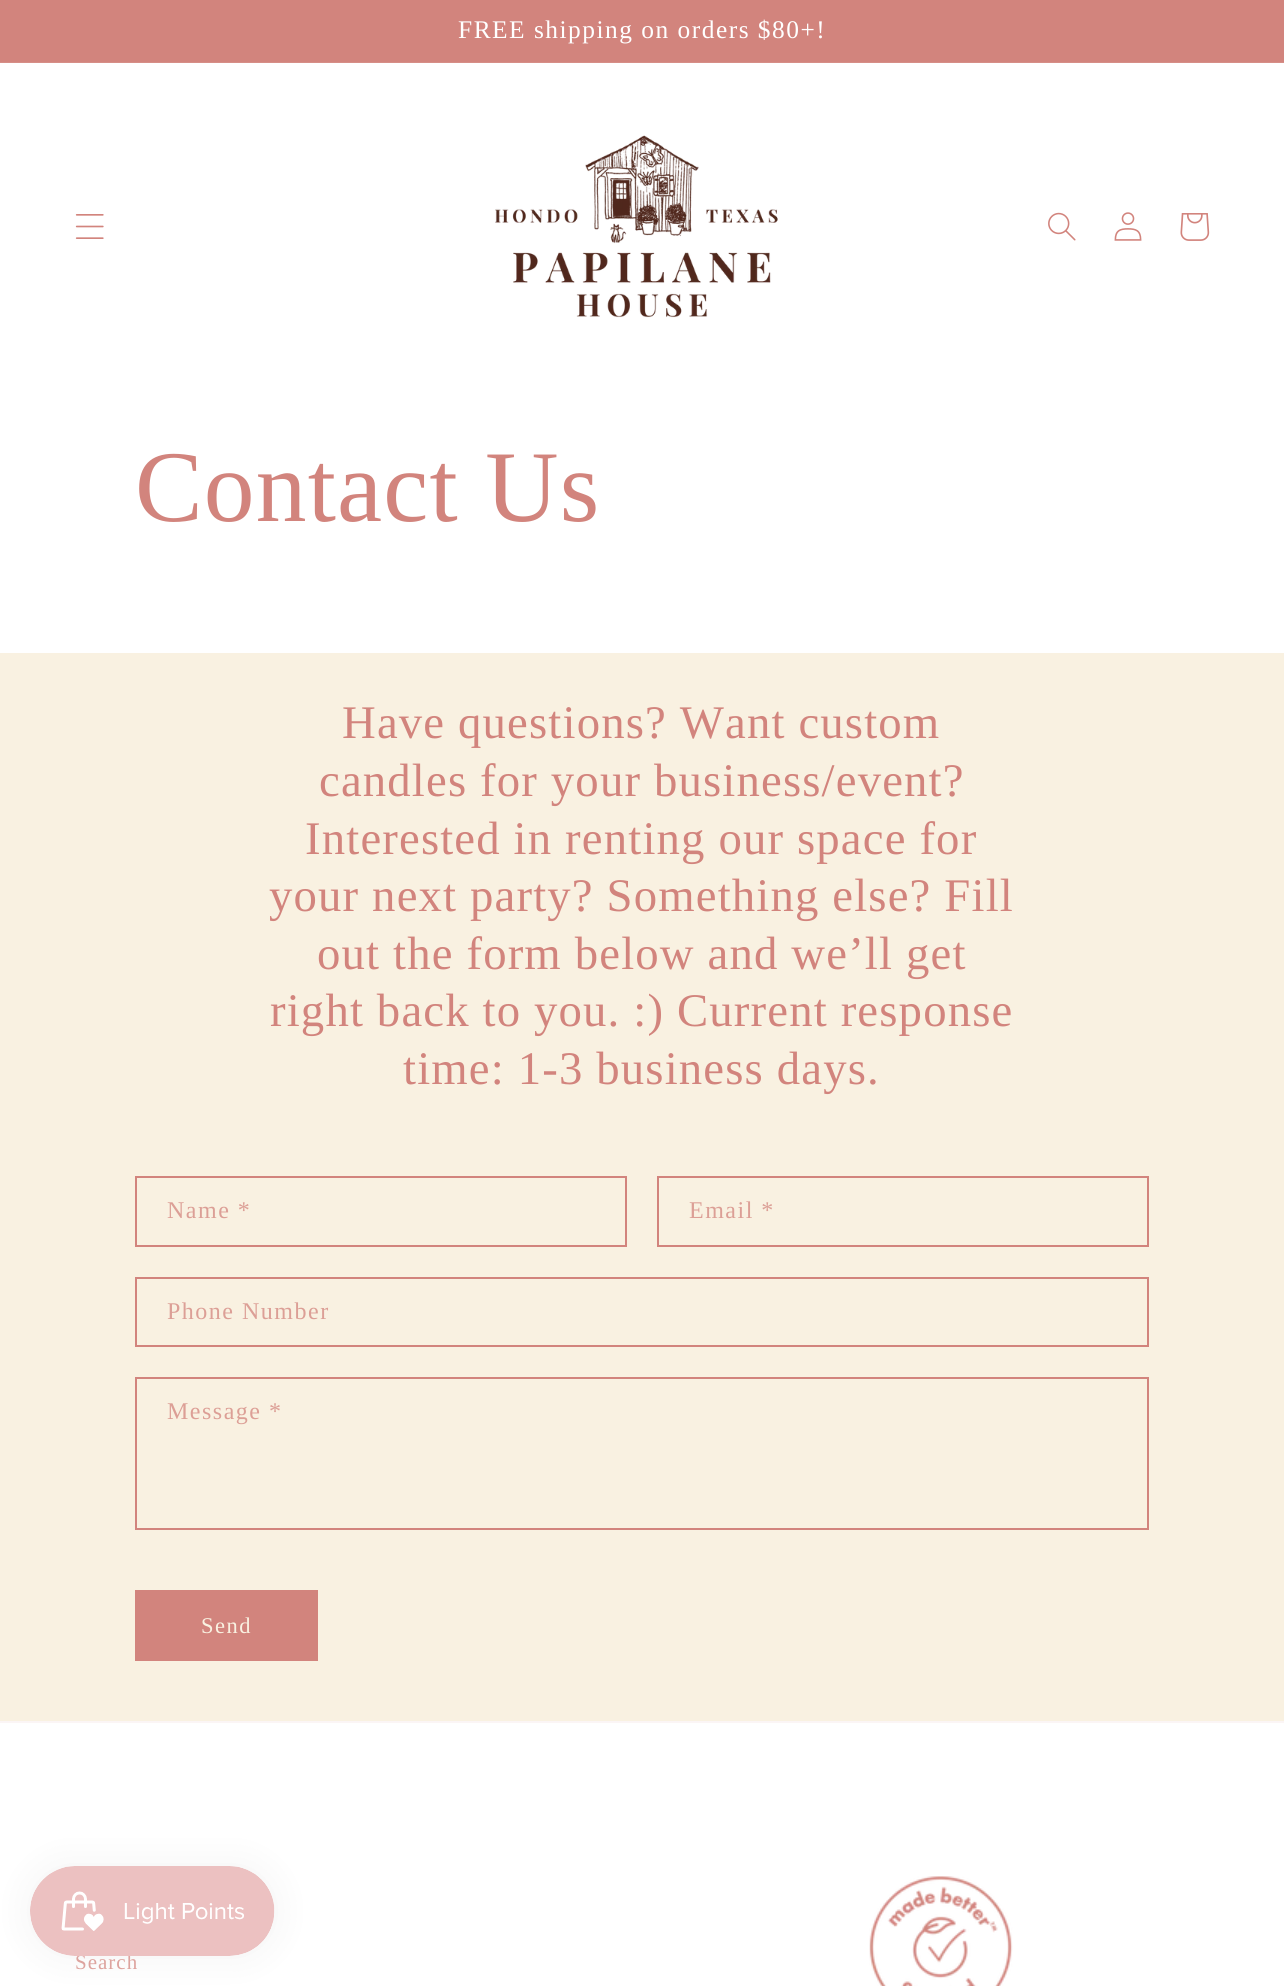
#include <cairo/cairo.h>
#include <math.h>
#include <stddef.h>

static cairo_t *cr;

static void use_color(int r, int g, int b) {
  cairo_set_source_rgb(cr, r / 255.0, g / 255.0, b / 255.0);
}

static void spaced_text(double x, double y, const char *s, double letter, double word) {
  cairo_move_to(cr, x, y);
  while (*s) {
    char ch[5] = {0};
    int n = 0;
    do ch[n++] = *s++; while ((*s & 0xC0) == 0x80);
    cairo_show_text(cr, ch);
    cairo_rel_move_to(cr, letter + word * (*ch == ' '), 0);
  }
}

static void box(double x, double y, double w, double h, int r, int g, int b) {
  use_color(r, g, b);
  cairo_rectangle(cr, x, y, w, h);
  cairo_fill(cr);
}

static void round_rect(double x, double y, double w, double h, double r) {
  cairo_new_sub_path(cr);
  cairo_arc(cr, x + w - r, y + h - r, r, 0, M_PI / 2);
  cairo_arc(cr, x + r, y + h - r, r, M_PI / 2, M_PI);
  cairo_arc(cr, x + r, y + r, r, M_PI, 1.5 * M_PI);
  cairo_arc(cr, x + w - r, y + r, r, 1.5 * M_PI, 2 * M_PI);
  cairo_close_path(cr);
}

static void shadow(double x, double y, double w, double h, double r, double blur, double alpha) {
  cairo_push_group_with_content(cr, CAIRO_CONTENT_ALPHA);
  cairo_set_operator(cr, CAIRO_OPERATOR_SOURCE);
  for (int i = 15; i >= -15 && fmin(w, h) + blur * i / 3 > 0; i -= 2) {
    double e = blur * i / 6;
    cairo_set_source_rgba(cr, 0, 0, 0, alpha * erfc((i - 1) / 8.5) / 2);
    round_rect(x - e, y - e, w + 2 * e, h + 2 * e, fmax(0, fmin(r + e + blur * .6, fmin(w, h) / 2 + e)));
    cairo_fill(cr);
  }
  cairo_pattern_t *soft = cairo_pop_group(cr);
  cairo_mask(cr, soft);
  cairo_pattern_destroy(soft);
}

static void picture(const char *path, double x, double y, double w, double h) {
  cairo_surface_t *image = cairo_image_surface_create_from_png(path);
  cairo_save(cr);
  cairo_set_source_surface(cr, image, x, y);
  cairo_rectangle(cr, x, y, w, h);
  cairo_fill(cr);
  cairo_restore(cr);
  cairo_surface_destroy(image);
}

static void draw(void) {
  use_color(255, 255, 255);
  cairo_paint(cr);
  box(0, 0, 1284, 62, 210, 132, 125);
  box(0, 62, 1284, 1, 214, 142, 135);
  picture("img_01.png", 75, 214, 29, 25);
  picture("img_02.png", 495, 135, 283, 183);
  picture("img_03.png", 1048, 212, 28, 29);
  picture("img_04.png", 1114, 212, 28, 29);
  picture("img_05.png", 1180, 213, 30, 28);
  box(0, 653, 1284, 1068, 249, 241, 225);
  cairo_rectangle(cr, 136, 1177, 490, 69);
  use_color(210, 132, 125);
  cairo_stroke(cr);
  cairo_rectangle(cr, 658, 1177, 490, 69);
  cairo_stroke(cr);
  cairo_rectangle(cr, 136, 1278, 1012, 68);
  cairo_stroke(cr);
  cairo_rectangle(cr, 136, 1378, 1012, 151);
  cairo_stroke(cr);
  box(135, 1590, 183, 71, 210, 132, 125);
  use_color(0, 0, 0);
  shadow(30, 1866, 245, 90, 45, 19, 0.05);
  box(0, 1721, 1284, 2, 251, 245, 245);
  picture("img_07.png", 869, 1876, 144, 110);
  cairo_select_font_face(cr, "Liberation Serif", CAIRO_FONT_SLANT_NORMAL, CAIRO_FONT_WEIGHT_NORMAL);
  cairo_set_font_size(cr, 25.4);
  use_color(255, 255, 255);
  spaced_text(458, 38, "FREE shipping on orders $80+!", 1.5, 0);
  cairo_set_font_size(cr, 101.5);
  use_color(210, 132, 125);
  spaced_text(135, 521, "Contact Us", 1.15, 0);
  cairo_set_font_size(cr, 46.75);
  spaced_text(342, 738, "Have questions? Want custom", 1.15, 0);
  spaced_text(319, 796, "candles for your business/event?", 1.15, 0);
  spaced_text(305, 854, "Interested in renting our space for", 1.15, 0);
  spaced_text(269, 911, "your next party? Something else? Fill", 1.15, 0);
  spaced_text(317, 969, "out the form below and we’ll get", 1.15, 0);
  spaced_text(270, 1026, "right back to you. :) Current response", 1.15, 0);
  spaced_text(403, 1084, "time: 1-3 business days.", 1.15, 0);
  cairo_set_font_size(cr, 24);
  use_color(220, 159, 150);
  spaced_text(167, 1218, "Name *", 1.5, 0);
  spaced_text(689, 1218, "Email *", 1.5, 0);
  spaced_text(167, 1319, "Phone Number", 1.5, 0);
  spaced_text(167, 1419, "Message *", 1.5, 0);
  cairo_set_font_size(cr, 22.5);
  use_color(249, 241, 225);
  spaced_text(201, 1633, "Send", 1.5, 0);
  cairo_set_font_size(cr, 21);
  use_color(221, 163, 158);
  spaced_text(75, 1969, "Search", 1, 0);
  picture("img_06.png", 30, 1866, 245, 90);
}

int main(void) {
  cairo_surface_t *surface = cairo_image_surface_create(CAIRO_FORMAT_RGB24, 1284, 1986);
  cr = cairo_create(surface);
  cairo_font_options_t *options = cairo_font_options_create();
  cairo_font_options_set_hint_metrics(options, CAIRO_HINT_METRICS_OFF);
  cairo_font_options_set_hint_style(options, CAIRO_HINT_STYLE_NONE);
  cairo_set_font_options(cr, options);
  cairo_set_miter_limit(cr, 4);
  draw();
  cairo_surface_write_to_png(surface, "out.png");
  cairo_font_options_destroy(options);
  cairo_destroy(cr);
  cairo_surface_destroy(surface);
  return 0;
}
